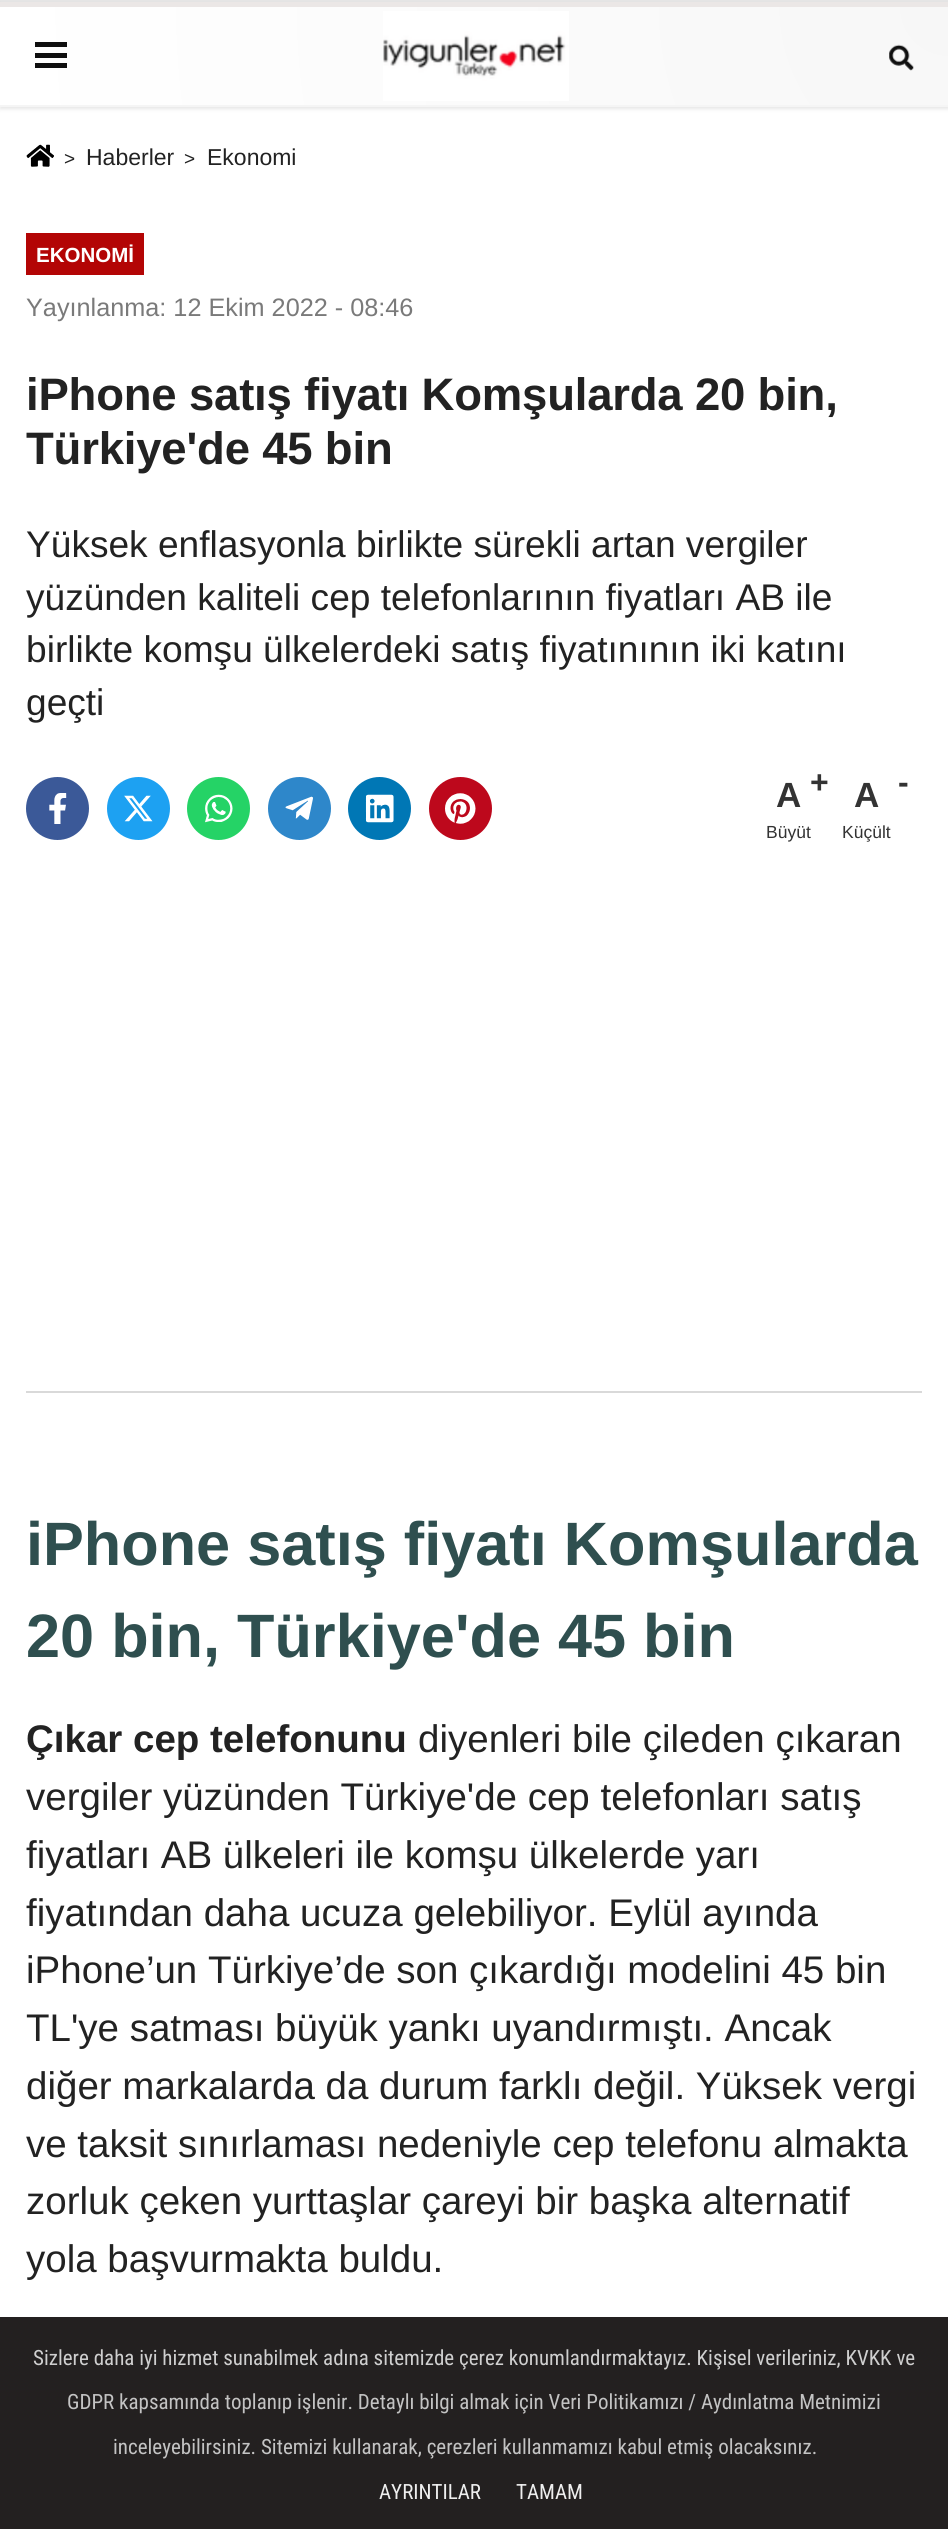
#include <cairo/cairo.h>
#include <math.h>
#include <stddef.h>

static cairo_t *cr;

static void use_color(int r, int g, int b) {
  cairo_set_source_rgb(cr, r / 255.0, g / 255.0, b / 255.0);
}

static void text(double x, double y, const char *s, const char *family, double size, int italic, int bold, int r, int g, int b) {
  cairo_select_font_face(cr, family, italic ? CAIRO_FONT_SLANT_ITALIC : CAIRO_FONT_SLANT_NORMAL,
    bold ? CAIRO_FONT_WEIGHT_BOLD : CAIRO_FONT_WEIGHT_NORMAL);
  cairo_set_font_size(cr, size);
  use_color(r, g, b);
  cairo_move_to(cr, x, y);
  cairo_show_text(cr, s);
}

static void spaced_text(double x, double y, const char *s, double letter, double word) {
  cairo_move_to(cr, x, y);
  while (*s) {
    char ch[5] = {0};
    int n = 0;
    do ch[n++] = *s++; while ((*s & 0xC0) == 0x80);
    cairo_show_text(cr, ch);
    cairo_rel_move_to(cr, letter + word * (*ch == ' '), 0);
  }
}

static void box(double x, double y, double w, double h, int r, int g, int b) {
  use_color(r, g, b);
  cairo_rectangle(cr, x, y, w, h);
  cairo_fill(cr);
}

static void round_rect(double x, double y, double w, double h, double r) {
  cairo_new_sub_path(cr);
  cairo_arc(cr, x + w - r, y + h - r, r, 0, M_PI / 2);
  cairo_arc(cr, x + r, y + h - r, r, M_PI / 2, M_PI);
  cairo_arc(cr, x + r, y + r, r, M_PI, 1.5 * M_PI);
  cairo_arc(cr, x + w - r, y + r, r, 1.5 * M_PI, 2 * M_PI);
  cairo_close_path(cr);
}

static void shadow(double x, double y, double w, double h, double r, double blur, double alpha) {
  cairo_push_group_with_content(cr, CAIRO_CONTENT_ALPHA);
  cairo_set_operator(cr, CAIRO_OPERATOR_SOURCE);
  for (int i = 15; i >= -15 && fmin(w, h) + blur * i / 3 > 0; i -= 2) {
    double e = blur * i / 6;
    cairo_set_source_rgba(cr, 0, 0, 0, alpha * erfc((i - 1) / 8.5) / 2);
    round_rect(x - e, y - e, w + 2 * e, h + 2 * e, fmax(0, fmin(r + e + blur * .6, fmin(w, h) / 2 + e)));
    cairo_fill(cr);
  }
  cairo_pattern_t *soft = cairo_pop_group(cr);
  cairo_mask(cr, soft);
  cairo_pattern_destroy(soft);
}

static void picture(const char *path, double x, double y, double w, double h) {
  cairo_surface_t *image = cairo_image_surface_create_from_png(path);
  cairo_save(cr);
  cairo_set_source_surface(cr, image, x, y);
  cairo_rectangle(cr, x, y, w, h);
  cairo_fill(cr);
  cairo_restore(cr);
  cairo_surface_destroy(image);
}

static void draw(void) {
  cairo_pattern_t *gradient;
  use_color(230, 230, 230);
  cairo_paint(cr);
  box(0, 107, 948, 2210, 255, 255, 255);
  use_color(0, 0, 0);
  shadow(0, 4, 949, 105, 0, 2, 0.1);
  gradient = cairo_pattern_create_radial(949, 7, 0, 949, 7, 954);
  cairo_pattern_add_color_stop_rgba(gradient, 0, 0.969, 0.969, 0.969, 1);
  cairo_pattern_add_color_stop_rgba(gradient, 1, 1, 1, 1, 1);
  cairo_set_source(cr, gradient);
  cairo_pattern_destroy(gradient);
  cairo_rectangle(cr, 0, 7, 948, 98);
  cairo_fill(cr);
  box(0, 2, 948, 5, 235, 231, 230);
  box(0, 105, 948, 2, 245, 245, 245);
  box(35, 42, 32, 5, 15, 15, 15);
  box(35, 53, 32, 5, 15, 15, 15);
  box(35, 63, 32, 5, 15, 15, 15);
  picture("img_01.png", 383, 11, 186, 90);
  picture("img_02.png", 889, 44, 25, 27);
  box(0, 2317, 948, 212, 35, 32, 32);
  picture("img_03.png", 26, 144, 28, 23);
  box(26, 233, 118, 42, 179, 5, 5);
  use_color(59, 89, 152);
  cairo_arc(cr, 57.5, 808.5, 31.5, 0, 2 * M_PI);
  cairo_fill(cr);
  picture("img_04.png", 49, 793, 18, 31);
  use_color(29, 161, 242);
  cairo_arc(cr, 138.5, 808.5, 31.5, 0, 2 * M_PI);
  cairo_fill(cr);
  picture("img_05.png", 124, 795, 29, 27);
  use_color(37, 211, 102);
  cairo_arc(cr, 218.5, 808.5, 31.5, 0, 2 * M_PI);
  cairo_fill(cr);
  picture("img_06.png", 205, 794, 28, 29);
  use_color(46, 135, 202);
  cairo_arc(cr, 299.5, 808.5, 31.5, 0, 2 * M_PI);
  cairo_fill(cr);
  picture("img_07.png", 285, 796, 28, 24);
  use_color(0, 119, 181);
  cairo_arc(cr, 379.5, 808.5, 31.5, 0, 2 * M_PI);
  cairo_fill(cr);
  picture("img_08.png", 365, 794, 29, 29);
  use_color(189, 8, 28);
  cairo_arc(cr, 460.5, 808.5, 31.5, 0, 2 * M_PI);
  cairo_fill(cr);
  picture("img_09.png", 445, 793, 31, 31);
  box(26, 1391, 896, 2, 217, 217, 217);
  text(64, 165, ">", "Liberation Sans", 19, 0, 0, 34, 34, 34);
  text(86, 165, "Haberler", "Liberation Sans", 23, 0, 0, 34, 34, 34);
  text(184, 165, ">", "Liberation Sans", 19, 0, 0, 34, 34, 34);
  text(207, 165, "Ekonomi", "Liberation Sans", 23, 0, 0, 34, 34, 34);
  text(36, 262, "EKONOMİ", "Liberation Sans", 20.5, 0, 1, 255, 255, 255);
  text(26, 316, "Yayınlanma: 12 Ekim 2022 - 08:46", "Liberation Sans", 25.25, 0, 0, 122, 122, 122);
  cairo_select_font_face(cr, "Liberation Sans", CAIRO_FONT_SLANT_NORMAL, CAIRO_FONT_WEIGHT_BOLD);
  cairo_set_font_size(cr, 45.5);
  use_color(34, 34, 34);
  spaced_text(26, 410, "iPhone satış fiyatı Komşularda 20 bin,", -0.2, 0);
  spaced_text(26, 464, "Türkiye'de 45 bin", -0.2, 0);
  text(26, 557, "Yüksek enflasyonla birlikte sürekli artan vergiler", "Liberation Sans", 37.1, 0, 0, 34, 34, 34);
  text(26, 610, "yüzünden kaliteli cep telefonlarının fiyatları AB ile", "Liberation Sans", 37.1, 0, 0, 34, 34, 34);
  text(26, 662, "birlikte komşu ülkelerdeki satış fiyatınının iki katını", "Liberation Sans", 37.1, 0, 0, 34, 34, 34);
  text(26, 715, "geçti", "Liberation Sans", 37.1, 0, 0, 34, 34, 34);
  text(776, 807, "A", "Liberation Sans", 35, 0, 1, 51, 51, 51);
  text(810, 793, "+", "Liberation Sans", 32, 0, 1, 51, 51, 51);
  text(766, 838, "Büyüt", "Liberation Sans", 17.5, 0, 0, 51, 51, 51);
  text(854, 807, "A", "Liberation Sans", 35, 0, 1, 51, 51, 51);
  text(898, 793, "-", "Liberation Sans", 32, 0, 1, 51, 51, 51);
  text(842, 838, "Küçült", "Liberation Sans", 17.5, 0, 0, 51, 51, 51);
  text(26, 1565, "iPhone satış fiyatı Komşularda", "Liberation Sans", 61.25, 0, 1, 47, 79, 79);
  text(26, 1657, "20 bin, Türkiye'de 45 bin", "Liberation Sans", 61.25, 0, 1, 47, 79, 79);
  text(26, 1752, "Çıkar cep telefonunu", "Liberation Sans", 38.5, 0, 1, 34, 34, 34);
  text(418, 1752, "diyenleri bile çileden çıkaran", "Liberation Sans", 38.5, 0, 0, 34, 34, 34);
  text(26, 1810, "vergiler yüzünden Türkiye'de cep telefonları satış", "Liberation Sans", 38.5, 0, 0, 34, 34, 34);
  text(26, 1868, "fiyatları AB ülkeleri ile komşu ülkelerde yarı", "Liberation Sans", 38.5, 0, 0, 34, 34, 34);
  text(26, 1926, "fiyatından daha ucuza gelebiliyor. Eylül ayında", "Liberation Sans", 38.5, 0, 0, 34, 34, 34);
  text(26, 1983, "iPhone’un Türkiye’de son çıkardığı modelini 45 bin", "Liberation Sans", 38.5, 0, 0, 34, 34, 34);
  text(26, 2041, "TL'ye satması büyük yankı uyandırmıştı. Ancak", "Liberation Sans", 38.5, 0, 0, 34, 34, 34);
  text(26, 2099, "diğer markalarda da durum farklı değil. Yüksek vergi", "Liberation Sans", 38.5, 0, 0, 34, 34, 34);
  text(26, 2157, "ve taksit sınırlaması nedeniyle cep telefonu almakta", "Liberation Sans", 38.5, 0, 0, 34, 34, 34);
  text(26, 2214, "zorluk çeken yurttaşlar çareyi bir başka alternatif", "Liberation Sans", 38.5, 0, 0, 34, 34, 34);
  text(26, 2272, "yola başvurmakta buldu.", "Liberation Sans", 38.5, 0, 0, 34, 34, 34);
  text(33, 2365, "Sizlere daha iyi hizmet sunabilmek adına sitemizde çerez konumlandırmaktayız. Kişisel verileriniz, KVKK ve", "Roboto Condensed", 21, 0, 0, 207, 207, 207);
  text(67, 2409, "GDPR kapsamında toplanıp işlenir. Detaylı bilgi almak için Veri Politikamızı / Aydınlatma Metnimizi", "Roboto Condensed", 21, 0, 0, 195, 195, 195);
  text(113, 2454, "inceleyebilirsiniz. Sitemizi kullanarak, çerezleri kullanmamızı kabul etmiş olacaksınız.", "Roboto Condensed", 21, 0, 0, 195, 195, 195);
  text(379, 2499, "AYRINTILAR", "Roboto Condensed", 21, 0, 0, 239, 239, 239);
  text(516, 2499, "TAMAM", "Roboto Condensed", 21, 0, 0, 239, 239, 239);
}

int main(void) {
  cairo_surface_t *surface = cairo_image_surface_create(CAIRO_FORMAT_RGB24, 948, 2529);
  cr = cairo_create(surface);
  cairo_font_options_t *options = cairo_font_options_create();
  cairo_font_options_set_hint_metrics(options, CAIRO_HINT_METRICS_OFF);
  cairo_font_options_set_hint_style(options, CAIRO_HINT_STYLE_NONE);
  cairo_set_font_options(cr, options);
  cairo_set_miter_limit(cr, 4);
  draw();
  cairo_surface_write_to_png(surface, "out.png");
  cairo_font_options_destroy(options);
  cairo_destroy(cr);
  cairo_surface_destroy(surface);
  return 0;
}
